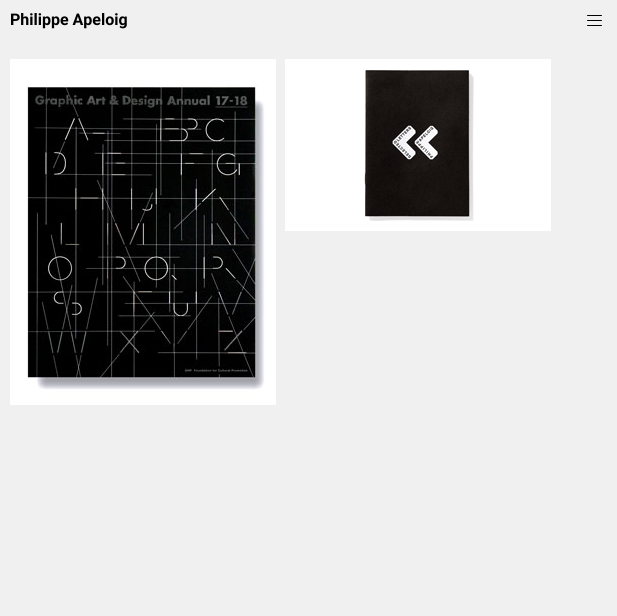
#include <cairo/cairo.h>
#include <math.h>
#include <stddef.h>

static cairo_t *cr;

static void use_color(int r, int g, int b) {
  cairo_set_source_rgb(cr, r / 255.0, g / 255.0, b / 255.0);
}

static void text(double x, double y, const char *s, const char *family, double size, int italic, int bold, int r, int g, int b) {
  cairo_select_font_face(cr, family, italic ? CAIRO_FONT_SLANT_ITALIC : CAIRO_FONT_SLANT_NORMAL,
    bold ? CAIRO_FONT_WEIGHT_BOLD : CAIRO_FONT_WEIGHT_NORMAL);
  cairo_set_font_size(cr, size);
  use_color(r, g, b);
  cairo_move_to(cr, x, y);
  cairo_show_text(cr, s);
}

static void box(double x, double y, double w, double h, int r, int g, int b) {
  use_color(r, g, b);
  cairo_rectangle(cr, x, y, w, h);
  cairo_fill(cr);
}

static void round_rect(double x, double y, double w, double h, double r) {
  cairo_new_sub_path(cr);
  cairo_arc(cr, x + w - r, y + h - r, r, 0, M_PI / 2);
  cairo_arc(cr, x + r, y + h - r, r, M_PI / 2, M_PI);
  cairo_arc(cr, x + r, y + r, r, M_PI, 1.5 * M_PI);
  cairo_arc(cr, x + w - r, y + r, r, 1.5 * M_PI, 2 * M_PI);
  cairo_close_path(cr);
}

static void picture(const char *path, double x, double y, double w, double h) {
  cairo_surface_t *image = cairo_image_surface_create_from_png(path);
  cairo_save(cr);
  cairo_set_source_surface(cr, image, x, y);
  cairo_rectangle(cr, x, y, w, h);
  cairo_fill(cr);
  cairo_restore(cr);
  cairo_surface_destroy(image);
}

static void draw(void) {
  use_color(240, 240, 240);
  cairo_paint(cr);
  box(10, 59, 266, 346, 255, 255, 255);
  picture("img_01.png", 26, 83, 239, 312);
  box(285, 59, 266, 172, 255, 255, 255);
  picture("img_02.png", 364, 70, 110, 151);
  use_color(0, 0, 0);
  round_rect(587, 20, 15, 1, 0.5);
  cairo_fill(cr);
  round_rect(587, 15, 15, 1, 0.5);
  cairo_fill(cr);
  round_rect(587, 25, 15, 1, 0.5);
  cairo_fill(cr);
  text(10, 25, "Philippe Apeloig", "Roboto", 16, 0, 1, 0, 0, 0);
}

int main(void) {
  cairo_surface_t *surface = cairo_image_surface_create(CAIRO_FORMAT_RGB24, 617, 616);
  cr = cairo_create(surface);
  cairo_font_options_t *options = cairo_font_options_create();
  cairo_font_options_set_hint_metrics(options, CAIRO_HINT_METRICS_OFF);
  cairo_font_options_set_hint_style(options, CAIRO_HINT_STYLE_NONE);
  cairo_set_font_options(cr, options);
  cairo_set_miter_limit(cr, 4);
  draw();
  cairo_surface_write_to_png(surface, "out.png");
  cairo_font_options_destroy(options);
  cairo_destroy(cr);
  cairo_surface_destroy(surface);
  return 0;
}
